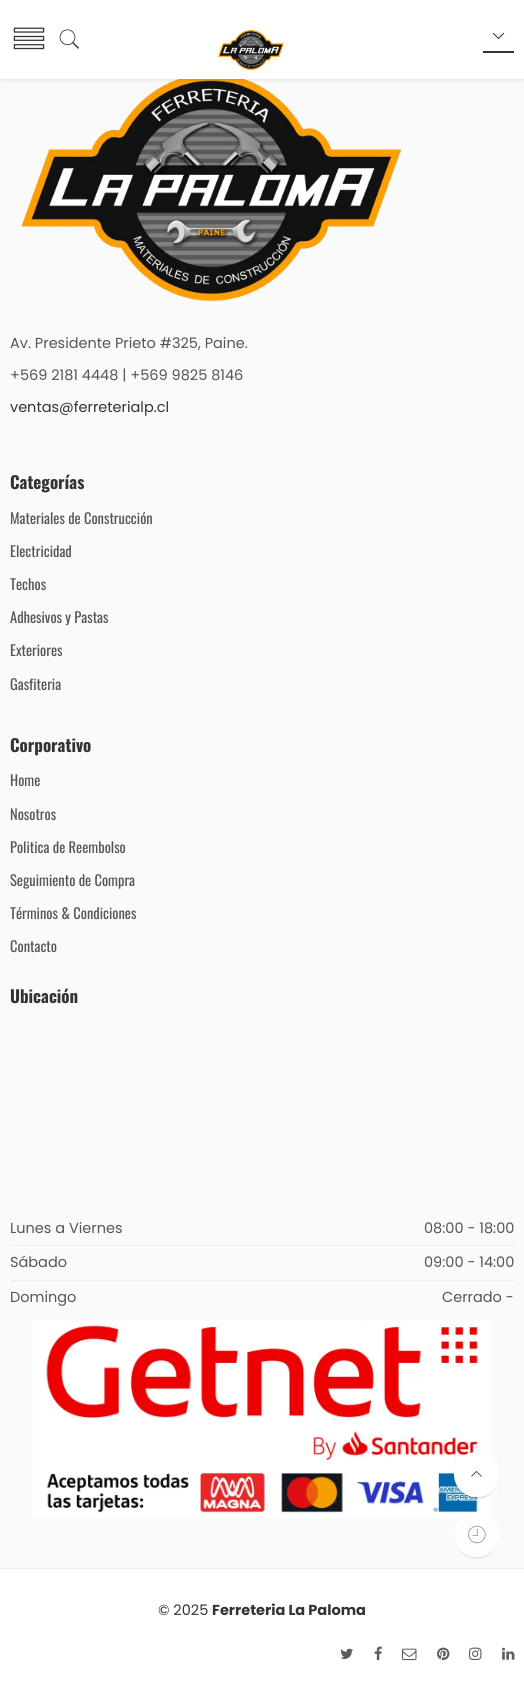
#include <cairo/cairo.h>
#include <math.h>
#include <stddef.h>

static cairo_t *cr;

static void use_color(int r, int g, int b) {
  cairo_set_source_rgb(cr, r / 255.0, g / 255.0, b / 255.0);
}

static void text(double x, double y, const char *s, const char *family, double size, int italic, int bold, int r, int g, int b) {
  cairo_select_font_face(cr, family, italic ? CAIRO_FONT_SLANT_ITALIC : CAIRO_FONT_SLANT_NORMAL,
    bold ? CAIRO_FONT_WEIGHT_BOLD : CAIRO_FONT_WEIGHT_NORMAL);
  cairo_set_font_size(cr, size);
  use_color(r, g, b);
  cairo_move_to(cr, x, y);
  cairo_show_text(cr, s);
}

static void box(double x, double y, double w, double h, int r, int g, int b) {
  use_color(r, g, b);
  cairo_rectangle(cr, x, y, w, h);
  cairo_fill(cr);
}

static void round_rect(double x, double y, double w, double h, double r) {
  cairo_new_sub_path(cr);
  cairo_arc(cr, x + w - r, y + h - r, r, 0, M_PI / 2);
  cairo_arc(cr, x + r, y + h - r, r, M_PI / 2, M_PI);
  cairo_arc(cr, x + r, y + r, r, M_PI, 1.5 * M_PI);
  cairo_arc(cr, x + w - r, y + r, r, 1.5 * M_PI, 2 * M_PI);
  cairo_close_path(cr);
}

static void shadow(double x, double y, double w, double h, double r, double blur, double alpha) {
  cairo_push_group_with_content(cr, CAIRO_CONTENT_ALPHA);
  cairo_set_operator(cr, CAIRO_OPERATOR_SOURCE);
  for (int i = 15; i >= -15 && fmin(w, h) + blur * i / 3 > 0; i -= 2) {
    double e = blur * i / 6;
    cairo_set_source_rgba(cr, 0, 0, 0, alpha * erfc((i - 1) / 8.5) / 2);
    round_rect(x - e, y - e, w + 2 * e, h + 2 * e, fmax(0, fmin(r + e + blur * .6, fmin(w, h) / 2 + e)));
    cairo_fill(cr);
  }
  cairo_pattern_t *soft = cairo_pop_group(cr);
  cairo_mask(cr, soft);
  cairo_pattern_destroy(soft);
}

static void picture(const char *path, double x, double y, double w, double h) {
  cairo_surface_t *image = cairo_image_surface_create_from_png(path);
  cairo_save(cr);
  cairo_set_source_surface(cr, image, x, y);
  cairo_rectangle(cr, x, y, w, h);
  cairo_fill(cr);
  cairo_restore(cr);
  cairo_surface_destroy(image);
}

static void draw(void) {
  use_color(250, 250, 250);
  cairo_paint(cr);
  picture("img_05.png", 21, 79, 381, 223);
  use_color(0, 0, 0);
  shadow(0, 1, 524, 79, 0, 1.5, 0.1);
  box(0, 0, 524, 79, 255, 255, 255);
  picture("img_01.png", 13, 27, 32, 23);
  picture("img_02.png", 59, 29, 20, 20);
  picture("img_03.png", 218, 29, 66, 41);
  picture("img_04.png", 492, 32, 13, 8);
  box(483, 51, 31, 2, 51, 51, 51);
  box(10, 1245, 504, 1, 239, 239, 239);
  box(10, 1280, 504, 1, 239, 239, 239);
  picture("img_06.png", 33, 1320, 458, 198);
  box(0, 1569, 524, 128, 255, 255, 255);
  box(0, 1568, 524, 1, 236, 236, 236);
  picture("img_07.png", 340, 1648, 13, 11);
  picture("img_08.png", 374, 1646, 8, 15);
  picture("img_09.png", 402, 1648, 15, 13);
  picture("img_10.png", 437, 1647, 13, 13);
  picture("img_11.png", 469, 1647, 13, 13);
  picture("img_12.png", 502, 1647, 13, 13);
  cairo_rectangle(cr, 454.25, 1452.25, 45.5, 45.5);
  cairo_set_source_rgba(cr, 0, 0, 0, 0.04);
  cairo_set_line_width(cr, 0.5);
  cairo_stroke(cr);
  cairo_set_source_rgba(cr, 0, 0, 0, 0.1);
  cairo_new_path(cr);
  cairo_move_to(cr, 499, 1476);
  cairo_curve_to(cr, 498, 1504, 455, 1504, 454, 1476);
  cairo_curve_to(cr, 453, 1498, 483, 1508, 495, 1489);
  cairo_curve_to(cr, 498, 1485, 499, 1480, 499, 1476);
  cairo_close_path(cr);
  cairo_fill(cr);
  use_color(255, 255, 255);
  cairo_arc(cr, 476.5, 1474.5, 22.5, 0, 2 * M_PI);
  cairo_fill(cr);
  picture("img_13.png", 471, 1470, 11, 7);
  cairo_set_source_rgba(cr, 0, 0, 0, 0.07);
  cairo_new_path(cr);
  cairo_move_to(cr, 499, 1536);
  cairo_curve_to(cr, 498, 1564, 455, 1564, 454, 1536);
  cairo_curve_to(cr, 453, 1558, 483, 1568, 495, 1549);
  cairo_curve_to(cr, 498, 1545, 499, 1540, 499, 1536);
  cairo_close_path(cr);
  cairo_fill(cr);
  cairo_set_source_rgba(cr, 1, 1, 1, 0.7);
  cairo_arc(cr, 476.5, 1534.5, 22.5, 0, 2 * M_PI);
  cairo_fill(cr);
  picture("img_14.png", 468, 1525, 18, 19);
  text(10, 348, "Av. Presidente Prieto #325, Paine.", "Poppins", 14.5, 0, 0, 85, 85, 85);
  text(10, 380, "+569 2181 4448 | +569 9825 8146", "Poppins", 14.5, 0, 0, 85, 85, 85);
  text(10, 412, "ventas@ferreterialp.cl", "Poppins", 14.5, 0, 0, 51, 51, 51);
  text(10, 489, "Categorías", "Oswald", 17, 0, 1, 51, 51, 51);
  text(10, 524, "Materiales de Construcción", "Oswald", 14.5, 0, 0, 85, 85, 85);
  text(10, 557, "Electricidad", "Oswald", 14.5, 0, 0, 85, 85, 85);
  text(10, 590, "Techos", "Oswald", 14.5, 0, 0, 85, 85, 85);
  text(10, 623, "Adhesivos y Pastas", "Oswald", 14.5, 0, 0, 85, 85, 85);
  text(10, 656, "Exteriores", "Oswald", 14.5, 0, 0, 85, 85, 85);
  text(10, 690, "Gasfiteria", "Oswald", 14.5, 0, 0, 85, 85, 85);
  text(10, 752, "Corporativo", "Oswald", 17, 0, 1, 51, 51, 51);
  text(10, 786, "Home", "Oswald", 14.5, 0, 0, 85, 85, 85);
  text(10, 820, "Nosotros", "Oswald", 14.5, 0, 0, 85, 85, 85);
  text(10, 853, "Politica de Reembolso", "Oswald", 14.5, 0, 0, 85, 85, 85);
  text(10, 886, "Seguimiento de Compra", "Oswald", 14.5, 0, 0, 85, 85, 85);
  text(10, 919, "Términos & Condiciones", "Oswald", 14.5, 0, 0, 85, 85, 85);
  text(10, 952, "Contacto", "Oswald", 14.5, 0, 0, 85, 85, 85);
  text(10, 1003, "Ubicación", "Oswald", 17, 0, 1, 51, 51, 51);
  text(10, 1233, "Lunes a Viernes", "Poppins", 14.5, 0, 0, 85, 85, 85);
  text(424, 1233, "08:00 - 18:00", "Poppins", 14.5, 0, 0, 85, 85, 85);
  text(10, 1267, "Sábado", "Poppins", 14.5, 0, 0, 85, 85, 85);
  text(424, 1267, "09:00 - 14:00", "Poppins", 14.5, 0, 0, 85, 85, 85);
  text(10, 1302, "Domingo", "Poppins", 14.5, 0, 0, 85, 85, 85);
  text(442, 1302, "Cerrado -", "Poppins", 14.5, 0, 0, 85, 85, 85);
  text(158, 1615, "© 2025", "Poppins", 14.5, 0, 0, 51, 51, 51);
  text(212, 1615, "Ferreteria La Paloma", "Poppins", 14.5, 0, 1, 51, 51, 51);
}

int main(void) {
  cairo_surface_t *surface = cairo_image_surface_create(CAIRO_FORMAT_RGB24, 524, 1697);
  cr = cairo_create(surface);
  cairo_font_options_t *options = cairo_font_options_create();
  cairo_font_options_set_hint_metrics(options, CAIRO_HINT_METRICS_OFF);
  cairo_font_options_set_hint_style(options, CAIRO_HINT_STYLE_NONE);
  cairo_set_font_options(cr, options);
  cairo_set_miter_limit(cr, 4);
  draw();
  cairo_surface_write_to_png(surface, "out.png");
  cairo_font_options_destroy(options);
  cairo_destroy(cr);
  cairo_surface_destroy(surface);
  return 0;
}
